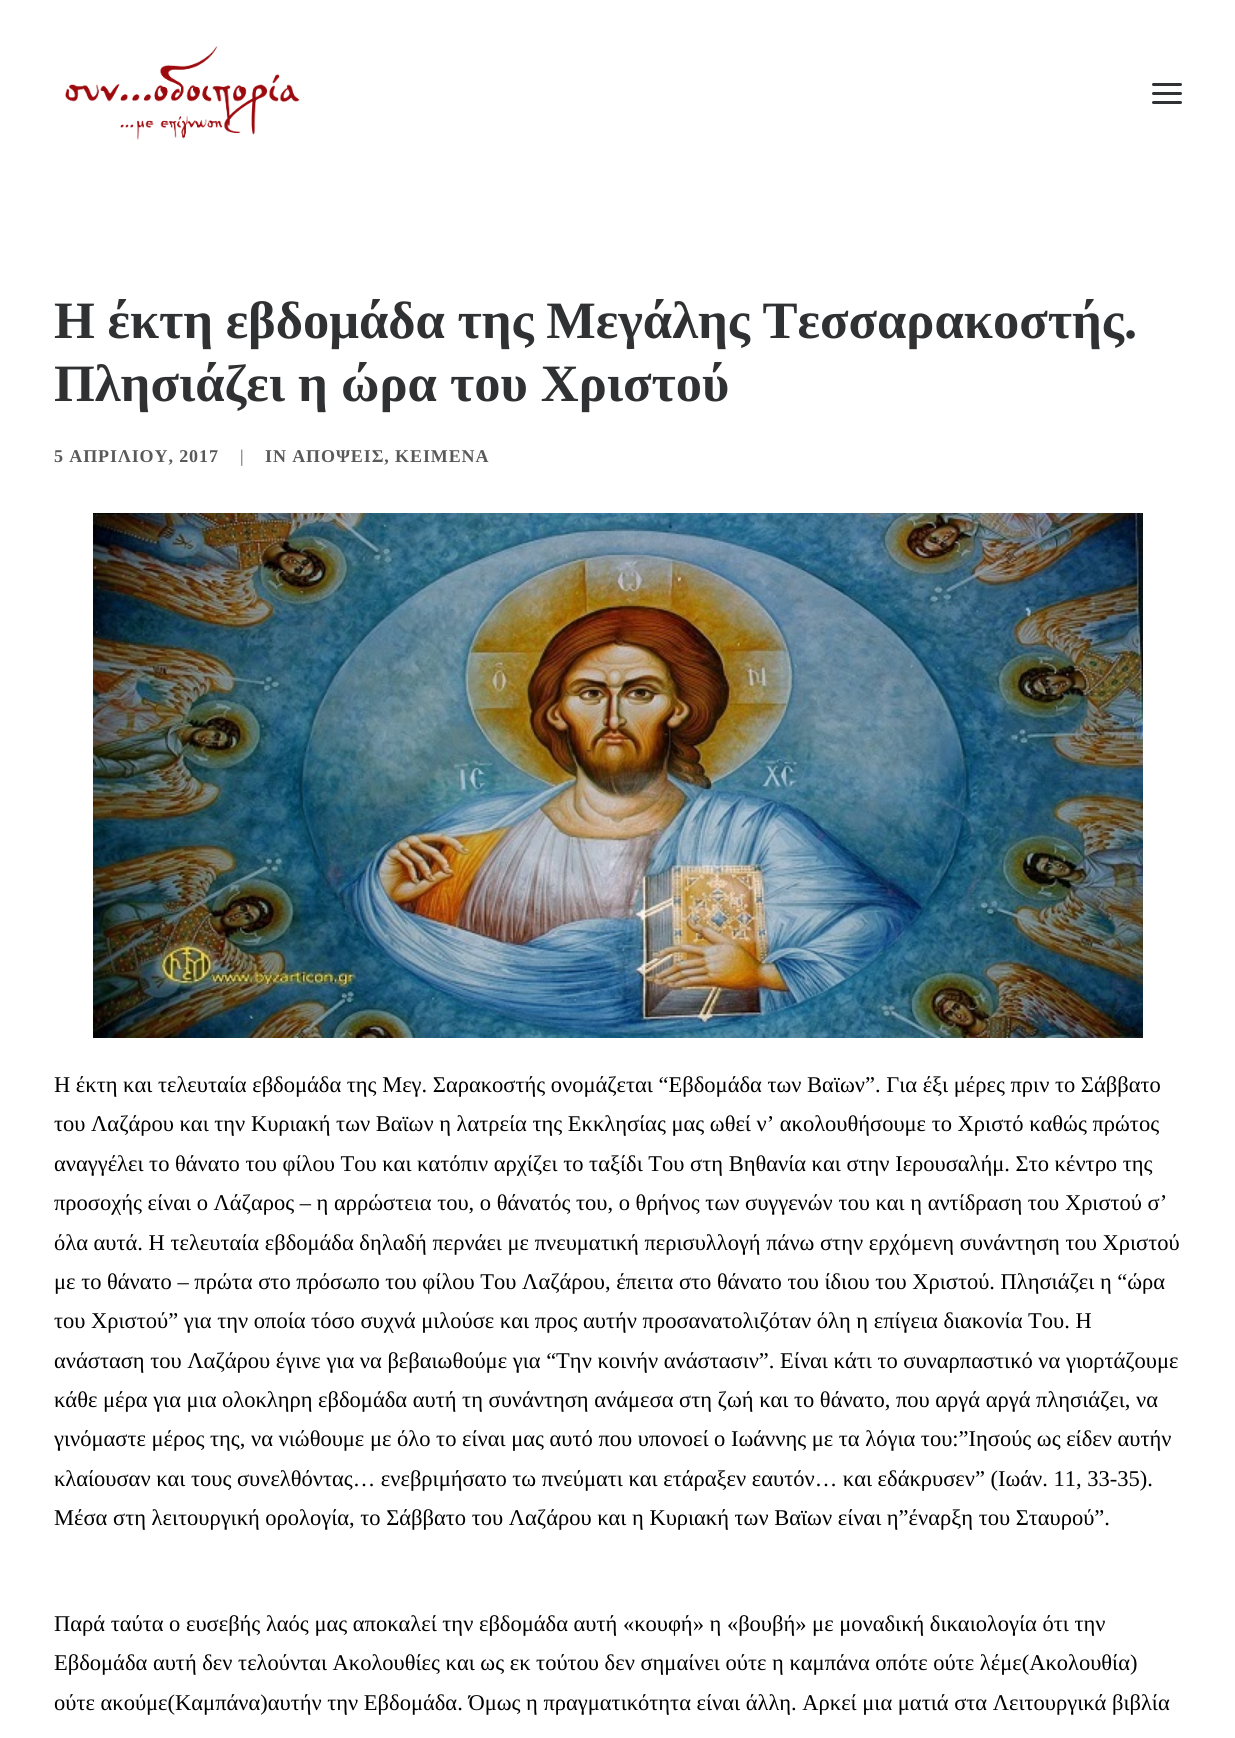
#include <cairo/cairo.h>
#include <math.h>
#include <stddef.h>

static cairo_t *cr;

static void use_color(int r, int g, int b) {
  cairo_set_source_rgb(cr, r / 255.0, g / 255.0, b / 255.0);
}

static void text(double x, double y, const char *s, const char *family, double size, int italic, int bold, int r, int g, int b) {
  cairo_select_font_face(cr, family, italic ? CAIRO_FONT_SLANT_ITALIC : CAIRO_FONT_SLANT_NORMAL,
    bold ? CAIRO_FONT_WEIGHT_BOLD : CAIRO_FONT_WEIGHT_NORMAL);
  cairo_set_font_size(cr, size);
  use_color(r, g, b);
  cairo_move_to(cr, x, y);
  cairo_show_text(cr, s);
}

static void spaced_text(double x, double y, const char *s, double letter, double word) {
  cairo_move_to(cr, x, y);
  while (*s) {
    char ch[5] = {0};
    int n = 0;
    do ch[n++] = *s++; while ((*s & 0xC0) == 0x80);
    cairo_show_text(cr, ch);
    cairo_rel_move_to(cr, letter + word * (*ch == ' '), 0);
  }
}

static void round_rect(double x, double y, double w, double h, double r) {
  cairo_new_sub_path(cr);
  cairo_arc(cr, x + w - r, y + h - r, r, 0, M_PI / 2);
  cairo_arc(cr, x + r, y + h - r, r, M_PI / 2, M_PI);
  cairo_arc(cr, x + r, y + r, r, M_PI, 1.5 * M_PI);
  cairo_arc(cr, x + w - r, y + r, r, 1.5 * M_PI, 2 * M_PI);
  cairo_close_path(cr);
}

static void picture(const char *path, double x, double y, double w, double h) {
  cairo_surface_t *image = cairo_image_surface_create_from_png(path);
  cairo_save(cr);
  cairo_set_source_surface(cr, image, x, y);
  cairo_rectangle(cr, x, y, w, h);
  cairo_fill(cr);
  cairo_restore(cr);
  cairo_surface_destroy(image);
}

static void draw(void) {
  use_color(255, 255, 255);
  cairo_paint(cr);
  picture("img_01.png", 65, 46, 235, 94);
  use_color(48, 49, 51);
  round_rect(1152, 92, 30, 3, 1.5);
  cairo_fill(cr);
  round_rect(1152, 83, 30, 3, 1.5);
  cairo_fill(cr);
  round_rect(1152, 101, 30, 3, 1.5);
  cairo_fill(cr);
  picture("img_02.png", 93, 513, 1050, 525);
  cairo_select_font_face(cr, "Liberation Serif", CAIRO_FONT_SLANT_NORMAL, CAIRO_FONT_WEIGHT_BOLD);
  cairo_set_font_size(cr, 52.5);
  spaced_text(54, 338, "Η έκτη εβδομάδα της Μεγάλης Τεσσαρακοστής.", 0, -0.5);
  text(54, 401, "Πλησιάζει η ώρα του Χριστού", "Liberation Serif", 52.5, 0, 1, 48, 49, 51);
  cairo_set_font_size(cr, 18);
  use_color(89, 89, 89);
  spaced_text(54, 462, "5 ΑΠΡΙΛΙΟΥ, 2017", 0.9, 0);
  cairo_select_font_face(cr, "Liberation Serif", CAIRO_FONT_SLANT_NORMAL, CAIRO_FONT_WEIGHT_NORMAL);
  spaced_text(240, 462, "|", 0.9, 0);
  cairo_select_font_face(cr, "Liberation Serif", CAIRO_FONT_SLANT_NORMAL, CAIRO_FONT_WEIGHT_BOLD);
  spaced_text(265, 462, "IN ΑΠΟΨΕΙΣ, ΚΕΙΜΕΝΑ", 0.9, 0);
  text(54, 1092, "H έκτη και τελευταία εβδομάδα της Μεγ. Σαρακοστής ονομάζεται “Εβδομάδα των Βαϊων”. Για έξι μέρες πριν το Σάββατο", "Liberation Serif", 22.5, 0, 0, 0, 0, 0);
  text(54, 1131, "του Λαζάρου και την Κυριακή των Βαϊων η λατρεία της Εκκλησίας μας ωθεί ν’ ακολουθήσουμε το Χριστό καθώς πρώτος", "Liberation Serif", 22.5, 0, 0, 0, 0, 0);
  text(54, 1171, "αναγγέλει το θάνατο του φίλου Του και κατόπιν αρχίζει το ταξίδι Του στη Βηθανία και στην Ιερουσαλήμ. Στο κέντρο της", "Liberation Serif", 22.5, 0, 0, 0, 0, 0);
  text(54, 1210, "προσοχής είναι ο Λάζαρος – η αρρώστεια του, ο θάνατός του, ο θρήνος των συγγενών του και η αντίδραση του Χριστού σ’", "Liberation Serif", 22.5, 0, 0, 0, 0, 0);
  text(54, 1250, "όλα αυτά. Η τελευταία εβδομάδα δηλαδή περνάει με πνευματική περισυλλογή πάνω στην ερχόμενη συνάντηση του Χριστού", "Liberation Serif", 22.5, 0, 0, 0, 0, 0);
  text(54, 1289, "με το θάνατο – πρώτα στο πρόσωπο του φίλου Του Λαζάρου, έπειτα στο θάνατο του ίδιου του Χριστού. Πλησιάζει η “ώρα", "Liberation Serif", 22.5, 0, 0, 0, 0, 0);
  text(54, 1328, "του Χριστού” για την οποία τόσο συχνά μιλούσε και προς αυτήν προσανατολιζόταν όλη η επίγεια διακονία Του. Η", "Liberation Serif", 22.5, 0, 0, 0, 0, 0);
  text(54, 1368, "ανάσταση του Λαζάρου έγινε για να βεβαιωθούμε για “Την κοινήν ανάστασιν”. Είναι κάτι το συναρπαστικό να γιορτάζουμε", "Liberation Serif", 22.5, 0, 0, 0, 0, 0);
  text(54, 1407, "κάθε μέρα για μια ολοκληρη εβδομάδα αυτή τη συνάντηση ανάμεσα στη ζωή και το θάνατο, που αργά αργά πλησιάζει, να", "Liberation Serif", 22.5, 0, 0, 0, 0, 0);
  text(54, 1446, "γινόμαστε μέρος της, να νιώθουμε με όλο το είναι μας αυτό που υπονοεί ο Ιωάννης με τα λόγια του:”Ιησούς ως είδεν αυτήν", "Liberation Serif", 22.5, 0, 0, 0, 0, 0);
  text(54, 1486, "κλαίουσαν και τους συνελθόντας… ενεβριμήσατο τω πνεύματι και ετάραξεν εαυτόν… και εδάκρυσεν” (Ιωάν. 11, 33-35).", "Liberation Serif", 22.5, 0, 0, 0, 0, 0);
  text(54, 1525, "Μέσα στη λειτουργική ορολογία, το Σάββατο του Λαζάρου και η Κυριακή των Βαϊων είναι η”έναρξη του Σταυρού”.", "Liberation Serif", 22.5, 0, 0, 0, 0, 0);
  text(54, 1631, "Παρά ταύτα ο ευσεβής λαός μας αποκαλεί την εβδομάδα αυτή «κουφή» η «βουβή» με μοναδική δικαιολογία ότι την", "Liberation Serif", 22.5, 0, 0, 0, 0, 0);
  text(54, 1670, "Εβδομάδα αυτή δεν τελούνται Ακολουθίες και ως εκ τούτου δεν σημαίνει ούτε η καμπάνα οπότε ούτε λέμε(Ακολουθία)", "Liberation Serif", 22.5, 0, 0, 0, 0, 0);
  text(54, 1710, "ούτε ακούμε(Καμπάνα)αυτήν την Εβδομάδα. Όμως η πραγματικότητα είναι άλλη. Αρκεί μια ματιά στα Λειτουργικά βιβλία", "Liberation Serif", 22.5, 0, 0, 0, 0, 0);
}

int main(void) {
  cairo_surface_t *surface = cairo_image_surface_create(CAIRO_FORMAT_RGB24, 1235, 1738);
  cr = cairo_create(surface);
  cairo_font_options_t *options = cairo_font_options_create();
  cairo_font_options_set_hint_metrics(options, CAIRO_HINT_METRICS_OFF);
  cairo_font_options_set_hint_style(options, CAIRO_HINT_STYLE_NONE);
  cairo_set_font_options(cr, options);
  cairo_set_miter_limit(cr, 4);
  draw();
  cairo_surface_write_to_png(surface, "out.png");
  cairo_font_options_destroy(options);
  cairo_destroy(cr);
  cairo_surface_destroy(surface);
  return 0;
}
